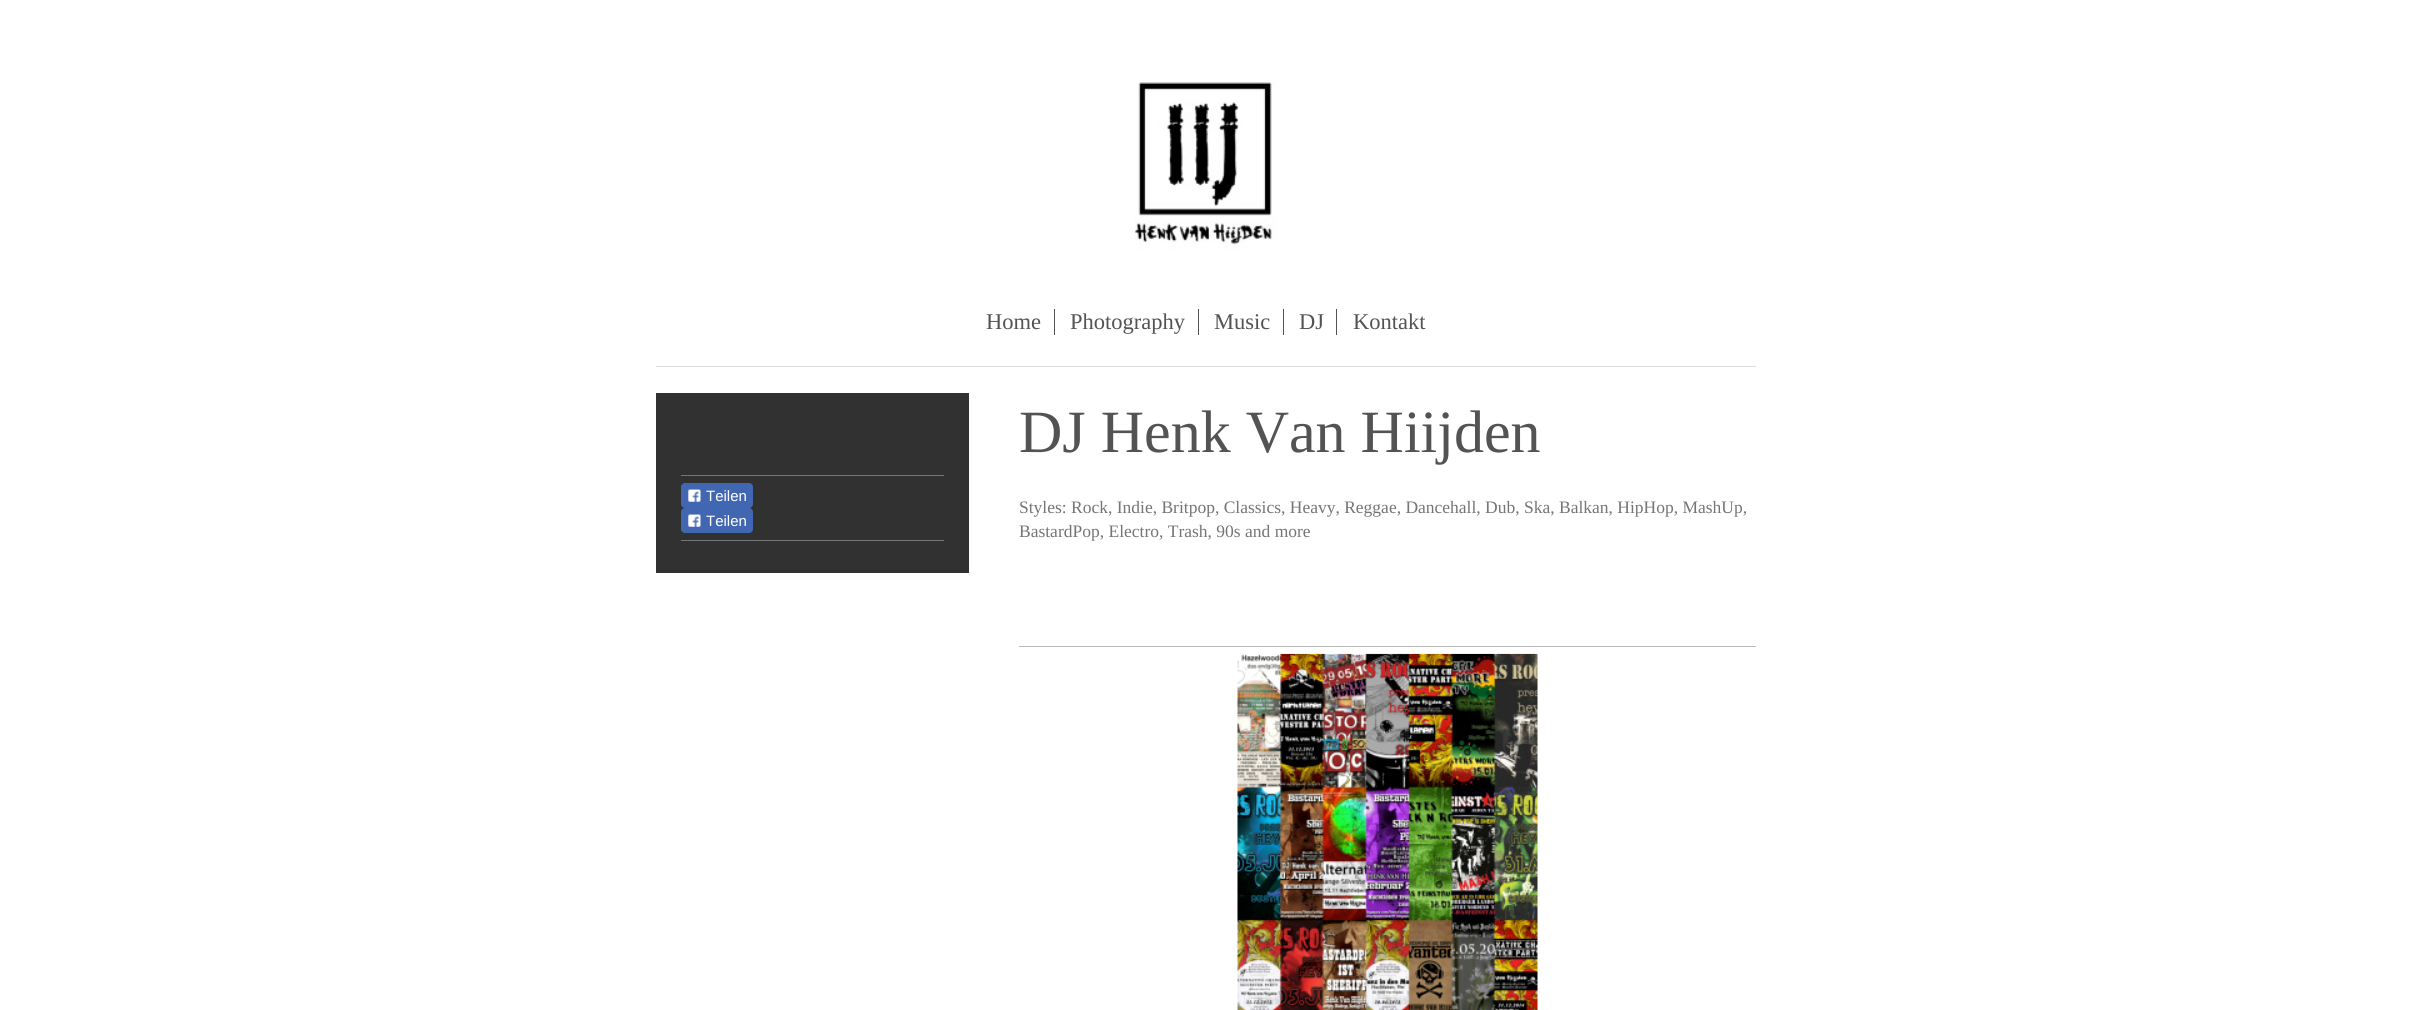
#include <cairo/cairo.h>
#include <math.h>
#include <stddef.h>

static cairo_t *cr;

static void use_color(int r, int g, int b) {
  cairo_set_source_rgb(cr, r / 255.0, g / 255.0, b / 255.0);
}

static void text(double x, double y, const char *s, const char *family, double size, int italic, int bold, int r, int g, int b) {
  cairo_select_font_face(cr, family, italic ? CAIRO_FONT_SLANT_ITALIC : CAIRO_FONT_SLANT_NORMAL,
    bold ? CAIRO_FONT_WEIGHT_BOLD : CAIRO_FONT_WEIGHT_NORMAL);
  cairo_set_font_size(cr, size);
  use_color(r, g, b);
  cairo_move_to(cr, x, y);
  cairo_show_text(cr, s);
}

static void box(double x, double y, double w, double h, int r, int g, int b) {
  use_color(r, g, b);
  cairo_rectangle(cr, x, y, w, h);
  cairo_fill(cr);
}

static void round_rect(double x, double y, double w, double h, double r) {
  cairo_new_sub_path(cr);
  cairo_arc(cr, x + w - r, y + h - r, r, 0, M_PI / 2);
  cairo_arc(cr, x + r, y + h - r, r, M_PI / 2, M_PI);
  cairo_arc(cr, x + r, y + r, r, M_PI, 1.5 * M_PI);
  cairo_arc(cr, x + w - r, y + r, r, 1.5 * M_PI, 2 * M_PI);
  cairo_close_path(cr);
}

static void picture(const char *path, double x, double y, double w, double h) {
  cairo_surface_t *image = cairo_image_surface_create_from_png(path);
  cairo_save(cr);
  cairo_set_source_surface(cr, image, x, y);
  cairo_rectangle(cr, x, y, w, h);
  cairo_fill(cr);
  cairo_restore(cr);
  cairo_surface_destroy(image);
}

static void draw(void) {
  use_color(255, 255, 255);
  cairo_paint(cr);
  picture("img_01.png", 1134, 82, 142, 168);
  box(656, 366, 1100, 1, 221, 221, 221);
  box(1054, 309, 1, 26, 83, 83, 83);
  box(1198, 309, 1, 26, 83, 83, 83);
  box(1283, 309, 1, 26, 83, 83, 83);
  box(1336, 309, 1, 26, 83, 83, 83);
  box(656, 393, 313, 180, 49, 49, 49);
  box(681, 475, 263, 1, 118, 118, 118);
  use_color(66, 103, 178);
  round_rect(681, 483, 72, 25, 4);
  cairo_fill(cr);
  picture("img_02.png", 688, 489, 13, 13);
  round_rect(681, 508, 72, 25, 4);
  cairo_fill(cr);
  picture("img_02.png", 688, 514, 13, 13);
  box(681, 540, 263, 1, 118, 118, 118);
  box(1019, 646, 737, 1, 186, 186, 186);
  picture("img_03.png", 1237, 653, 301, 357);
  text(986, 329, "Home", "Liberation Serif", 22.5, 0, 0, 83, 83, 83);
  text(1070, 329, "Photography", "Liberation Serif", 22.5, 0, 0, 83, 83, 83);
  text(1214, 329, "Music", "Liberation Serif", 22.5, 0, 0, 83, 83, 83);
  text(1299, 329, "DJ", "Liberation Serif", 22.5, 0, 0, 83, 83, 83);
  text(1353, 329, "Kontakt", "Liberation Serif", 22.5, 0, 0, 83, 83, 83);
  text(706, 501, "Teilen", "Liberation Sans", 15, 0, 0, 255, 255, 255);
  text(706, 526, "Teilen", "Liberation Sans", 15, 0, 0, 255, 255, 255);
  text(1019, 452, "DJ Henk Van Hiijden", "Liberation Serif", 60, 0, 0, 83, 83, 83);
  text(1019, 513, "Styles: Rock, Indie, Britpop, Classics, Heavy, Reggae, Dancehall, Dub, Ska, Balkan, HipHop, MashUp,", "Liberation Serif", 17.5, 0, 0, 117, 117, 117);
  text(1019, 537, "BastardPop, Electro, Trash, 90s and more", "Liberation Serif", 17.5, 0, 0, 117, 117, 117);
}

int main(void) {
  cairo_surface_t *surface = cairo_image_surface_create(CAIRO_FORMAT_RGB24, 2411, 1010);
  cr = cairo_create(surface);
  cairo_font_options_t *options = cairo_font_options_create();
  cairo_font_options_set_hint_metrics(options, CAIRO_HINT_METRICS_OFF);
  cairo_font_options_set_hint_style(options, CAIRO_HINT_STYLE_NONE);
  cairo_set_font_options(cr, options);
  cairo_set_miter_limit(cr, 4);
  draw();
  cairo_surface_write_to_png(surface, "out.png");
  cairo_font_options_destroy(options);
  cairo_destroy(cr);
  cairo_surface_destroy(surface);
  return 0;
}
